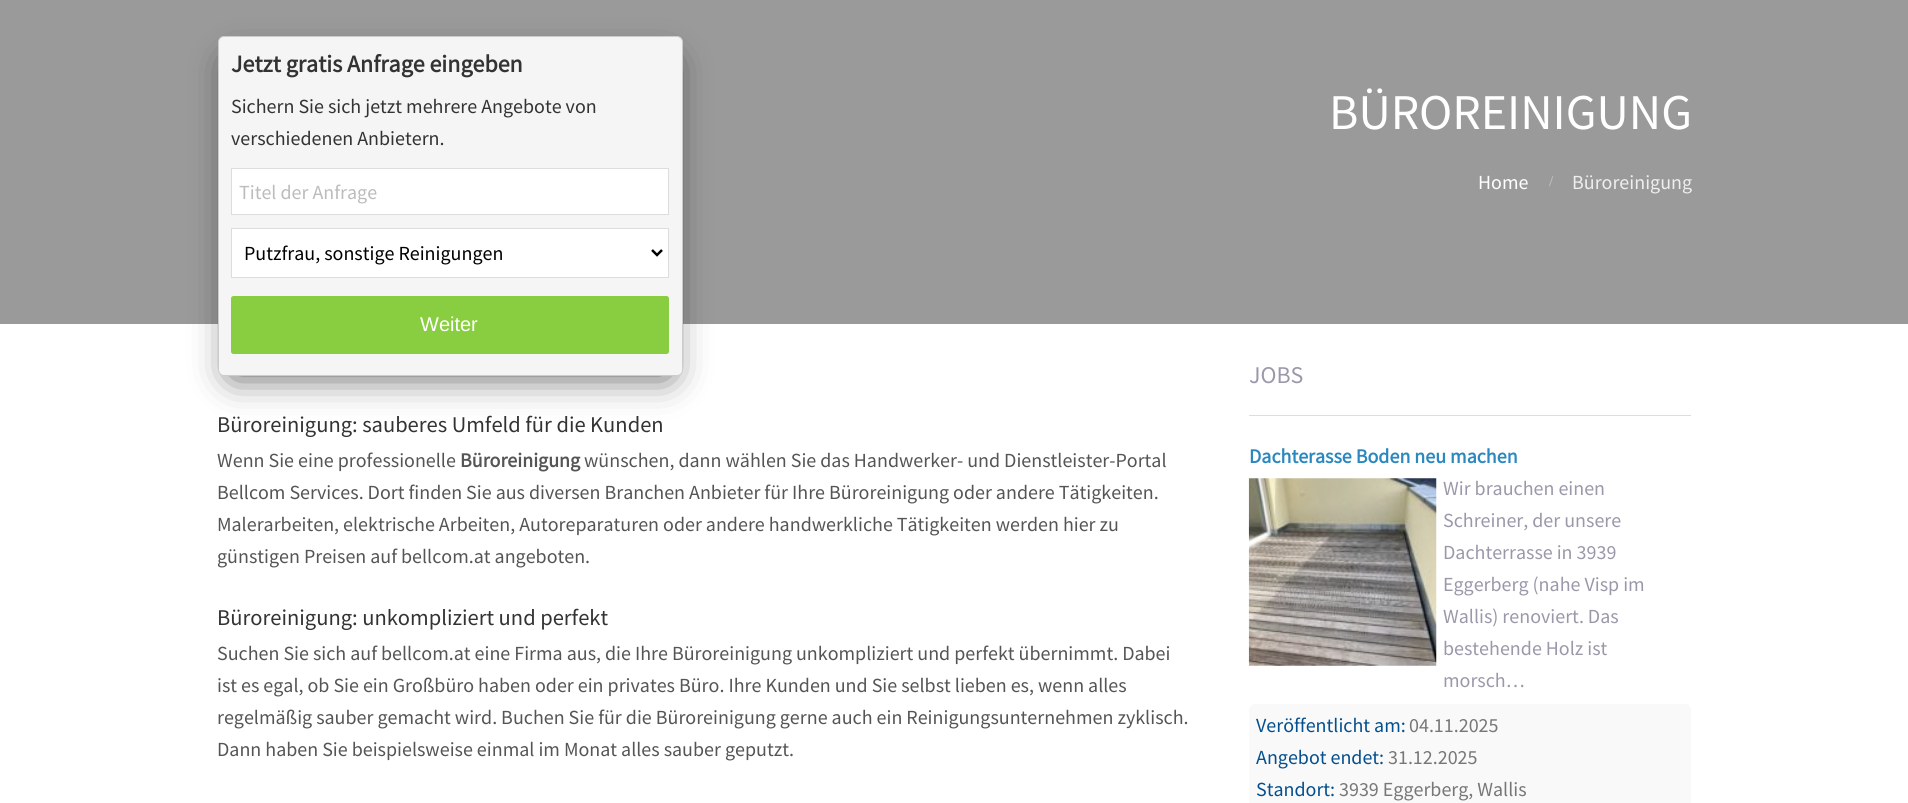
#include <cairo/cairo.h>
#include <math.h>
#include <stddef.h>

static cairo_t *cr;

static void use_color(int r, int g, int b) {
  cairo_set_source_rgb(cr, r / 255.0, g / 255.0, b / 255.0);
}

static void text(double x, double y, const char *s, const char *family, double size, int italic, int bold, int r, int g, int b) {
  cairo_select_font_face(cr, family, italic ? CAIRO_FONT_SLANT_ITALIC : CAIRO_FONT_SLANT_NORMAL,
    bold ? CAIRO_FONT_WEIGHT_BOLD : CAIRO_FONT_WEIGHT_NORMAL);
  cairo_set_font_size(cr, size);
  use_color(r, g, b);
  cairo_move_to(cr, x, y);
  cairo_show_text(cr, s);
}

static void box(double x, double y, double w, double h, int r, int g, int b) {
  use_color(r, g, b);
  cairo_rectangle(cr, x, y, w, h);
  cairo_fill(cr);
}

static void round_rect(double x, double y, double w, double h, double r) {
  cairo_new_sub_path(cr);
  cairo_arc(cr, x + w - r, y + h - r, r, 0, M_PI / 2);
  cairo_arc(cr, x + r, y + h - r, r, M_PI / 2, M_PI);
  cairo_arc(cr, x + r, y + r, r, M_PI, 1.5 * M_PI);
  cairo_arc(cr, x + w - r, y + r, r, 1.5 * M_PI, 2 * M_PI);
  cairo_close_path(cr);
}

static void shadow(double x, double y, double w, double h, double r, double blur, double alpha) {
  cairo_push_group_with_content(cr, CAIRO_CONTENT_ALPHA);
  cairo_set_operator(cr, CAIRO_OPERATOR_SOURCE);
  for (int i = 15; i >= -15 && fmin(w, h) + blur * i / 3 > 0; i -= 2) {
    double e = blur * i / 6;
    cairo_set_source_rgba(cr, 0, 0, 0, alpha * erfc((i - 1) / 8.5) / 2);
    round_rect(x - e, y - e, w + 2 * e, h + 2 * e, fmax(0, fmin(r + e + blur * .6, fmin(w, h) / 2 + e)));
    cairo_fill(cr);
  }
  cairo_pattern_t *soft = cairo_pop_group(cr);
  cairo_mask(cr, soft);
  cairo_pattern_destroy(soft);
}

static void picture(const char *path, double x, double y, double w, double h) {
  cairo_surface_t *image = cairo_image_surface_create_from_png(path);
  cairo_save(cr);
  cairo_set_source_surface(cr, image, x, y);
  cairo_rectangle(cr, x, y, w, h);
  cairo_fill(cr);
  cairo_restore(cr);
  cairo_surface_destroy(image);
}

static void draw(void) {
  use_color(255, 255, 255);
  cairo_paint(cr);
  box(0, 0, 1908, 324, 154, 154, 154);
  use_color(0, 0, 0);
  shadow(233, 64, 435, 310, 0, 19, 0.75);
  use_color(245, 245, 245);
  round_rect(218.5, 36.5, 464, 339, 5.5);
  cairo_fill_preserve(cr);
  use_color(204, 204, 204);
  cairo_set_line_width(cr, 1);
  cairo_stroke(cr);
  use_color(255, 255, 255);
  cairo_rectangle(cr, 231.5, 168.5, 437, 46);
  cairo_fill_preserve(cr);
  use_color(221, 221, 221);
  cairo_stroke(cr);
  use_color(255, 255, 255);
  cairo_rectangle(cr, 231.5, 228.5, 437, 49);
  cairo_fill_preserve(cr);
  use_color(221, 221, 221);
  cairo_stroke(cr);
  cairo_new_path(cr);
  cairo_move_to(cr, 652, 250);
  cairo_line_to(cr, 657, 255);
  cairo_line_to(cr, 662, 250);
  use_color(0, 0, 0);
  cairo_set_line_width(cr, 2.5);
  cairo_stroke(cr);
  use_color(137, 206, 64);
  round_rect(232.5, 297.5, 435, 55, 1);
  cairo_fill_preserve(cr);
  cairo_set_line_width(cr, 3);
  cairo_stroke(cr);
  box(1249, 415, 442, 1, 221, 221, 221);
  picture("img_01.png", 1248, 478, 189, 188);
  use_color(249, 249, 249);
  round_rect(1249, 704, 442, 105, 6);
  cairo_fill(cr);
  text(231, 72, "Jetzt gratis Anfrage eingeben", "Source Sans Pro", 24, 0, 1, 51, 51, 51);
  text(231, 113, "Sichern Sie sich jetzt mehrere Angebote von", "Source Sans Pro", 20, 0, 0, 51, 51, 51);
  text(231, 145, "verschiedenen Anbietern.", "Source Sans Pro", 20, 0, 0, 51, 51, 51);
  text(239, 199, "Titel der Anfrage", "Source Sans Pro", 20, 0, 0, 188, 188, 188);
  text(244, 260, "Putzfrau, sonstige Reinigungen", "Source Sans Pro", 20, 0, 0, 0, 0, 0);
  text(420, 331, "Weiter", "Liberation Sans", 20, 0, 0, 255, 255, 255);
  text(1329, 129, "BÜROREINIGUNG", "Source Sans Pro", 50, 0, 0, 255, 255, 255);
  text(1478, 189, "Home", "Source Sans Pro", 20, 0, 0, 255, 255, 255);
  text(1549, 186, "/", "Liberation Serif", 15, 0, 1, 188, 188, 188);
  text(1572, 189, "Büroreinigung", "Source Sans Pro", 20, 0, 0, 238, 238, 238);
  text(217, 432, "Büroreinigung: sauberes Umfeld für die Kunden", "Source Sans Pro", 22.5, 0, 0, 51, 51, 51);
  text(217, 467, "Wenn Sie eine professionelle", "Source Sans Pro", 20, 0, 0, 85, 85, 85);
  text(460, 467, "Büroreinigung", "Source Sans Pro", 20, 0, 1, 85, 85, 85);
  text(584, 467, "wünschen, dann wählen Sie das Handwerker- und Dienstleister-Portal", "Source Sans Pro", 20, 0, 0, 85, 85, 85);
  text(217, 499, "Bellcom Services. Dort finden Sie aus diversen Branchen Anbieter für Ihre Büroreinigung oder andere Tätigkeiten.", "Source Sans Pro", 20, 0, 0, 85, 85, 85);
  text(217, 531, "Malerarbeiten, elektrische Arbeiten, Autoreparaturen oder andere handwerkliche Tätigkeiten werden hier zu", "Source Sans Pro", 20, 0, 0, 85, 85, 85);
  text(217, 563, "günstigen Preisen auf bellcom.at angeboten.", "Source Sans Pro", 20, 0, 0, 85, 85, 85);
  text(217, 625, "Büroreinigung: unkompliziert und perfekt", "Source Sans Pro", 22.5, 0, 0, 51, 51, 51);
  text(217, 660, "Suchen Sie sich auf bellcom.at eine Firma aus, die Ihre Büroreinigung unkompliziert und perfekt übernimmt. Dabei", "Source Sans Pro", 20, 0, 0, 85, 85, 85);
  text(217, 692, "ist es egal, ob Sie ein Großbüro haben oder ein privates Büro. Ihre Kunden und Sie selbst lieben es, wenn alles", "Source Sans Pro", 20, 0, 0, 85, 85, 85);
  text(217, 724, "regelmäßig sauber gemacht wird. Buchen Sie für die Büroreinigung gerne auch ein Reinigungsunternehmen zyklisch.", "Source Sans Pro", 20, 0, 0, 85, 85, 85);
  text(217, 756, "Dann haben Sie beispielsweise einmal im Monat alles sauber geputzt.", "Source Sans Pro", 20, 0, 0, 85, 85, 85);
  text(1249, 383, "JOBS", "Source Sans Pro", 24, 0, 0, 153, 153, 170);
  text(1249, 463, "Dachterasse Boden neu machen", "Source Sans Pro", 20, 0, 1, 42, 136, 191);
  text(1443, 495, "Wir brauchen einen", "Source Sans Pro", 20, 0, 0, 153, 153, 170);
  text(1443, 527, "Schreiner, der unsere", "Source Sans Pro", 20, 0, 0, 153, 153, 170);
  text(1443, 559, "Dachterrasse in 3939", "Source Sans Pro", 20, 0, 0, 153, 153, 170);
  text(1443, 591, "Eggerberg (nahe Visp im", "Source Sans Pro", 20, 0, 0, 153, 153, 170);
  text(1443, 623, "Wallis) renoviert. Das", "Source Sans Pro", 20, 0, 0, 153, 153, 170);
  text(1443, 655, "bestehende Holz ist", "Source Sans Pro", 20, 0, 0, 153, 153, 170);
  text(1443, 687, "morsch…", "Source Sans Pro", 20, 0, 0, 153, 153, 170);
  text(1256, 732, "Veröffentlicht am:", "Source Sans Pro", 20, 0, 0, 4, 79, 141);
  text(1409, 732, "04.11.2025", "Source Sans Pro", 20, 0, 0, 119, 119, 119);
  text(1256, 764, "Angebot endet:", "Source Sans Pro", 20, 0, 0, 4, 79, 141);
  text(1388, 764, "31.12.2025", "Source Sans Pro", 20, 0, 0, 119, 119, 119);
  text(1256, 796, "Standort:", "Source Sans Pro", 20, 0, 0, 4, 79, 141);
  text(1339, 796, "3939 Eggerberg, Wallis", "Source Sans Pro", 20, 0, 0, 119, 119, 119);
}

int main(void) {
  cairo_surface_t *surface = cairo_image_surface_create(CAIRO_FORMAT_RGB24, 1908, 803);
  cr = cairo_create(surface);
  cairo_font_options_t *options = cairo_font_options_create();
  cairo_font_options_set_hint_metrics(options, CAIRO_HINT_METRICS_OFF);
  cairo_font_options_set_hint_style(options, CAIRO_HINT_STYLE_NONE);
  cairo_set_font_options(cr, options);
  cairo_set_miter_limit(cr, 4);
  draw();
  cairo_surface_write_to_png(surface, "out.png");
  cairo_font_options_destroy(options);
  cairo_destroy(cr);
  cairo_surface_destroy(surface);
  return 0;
}
